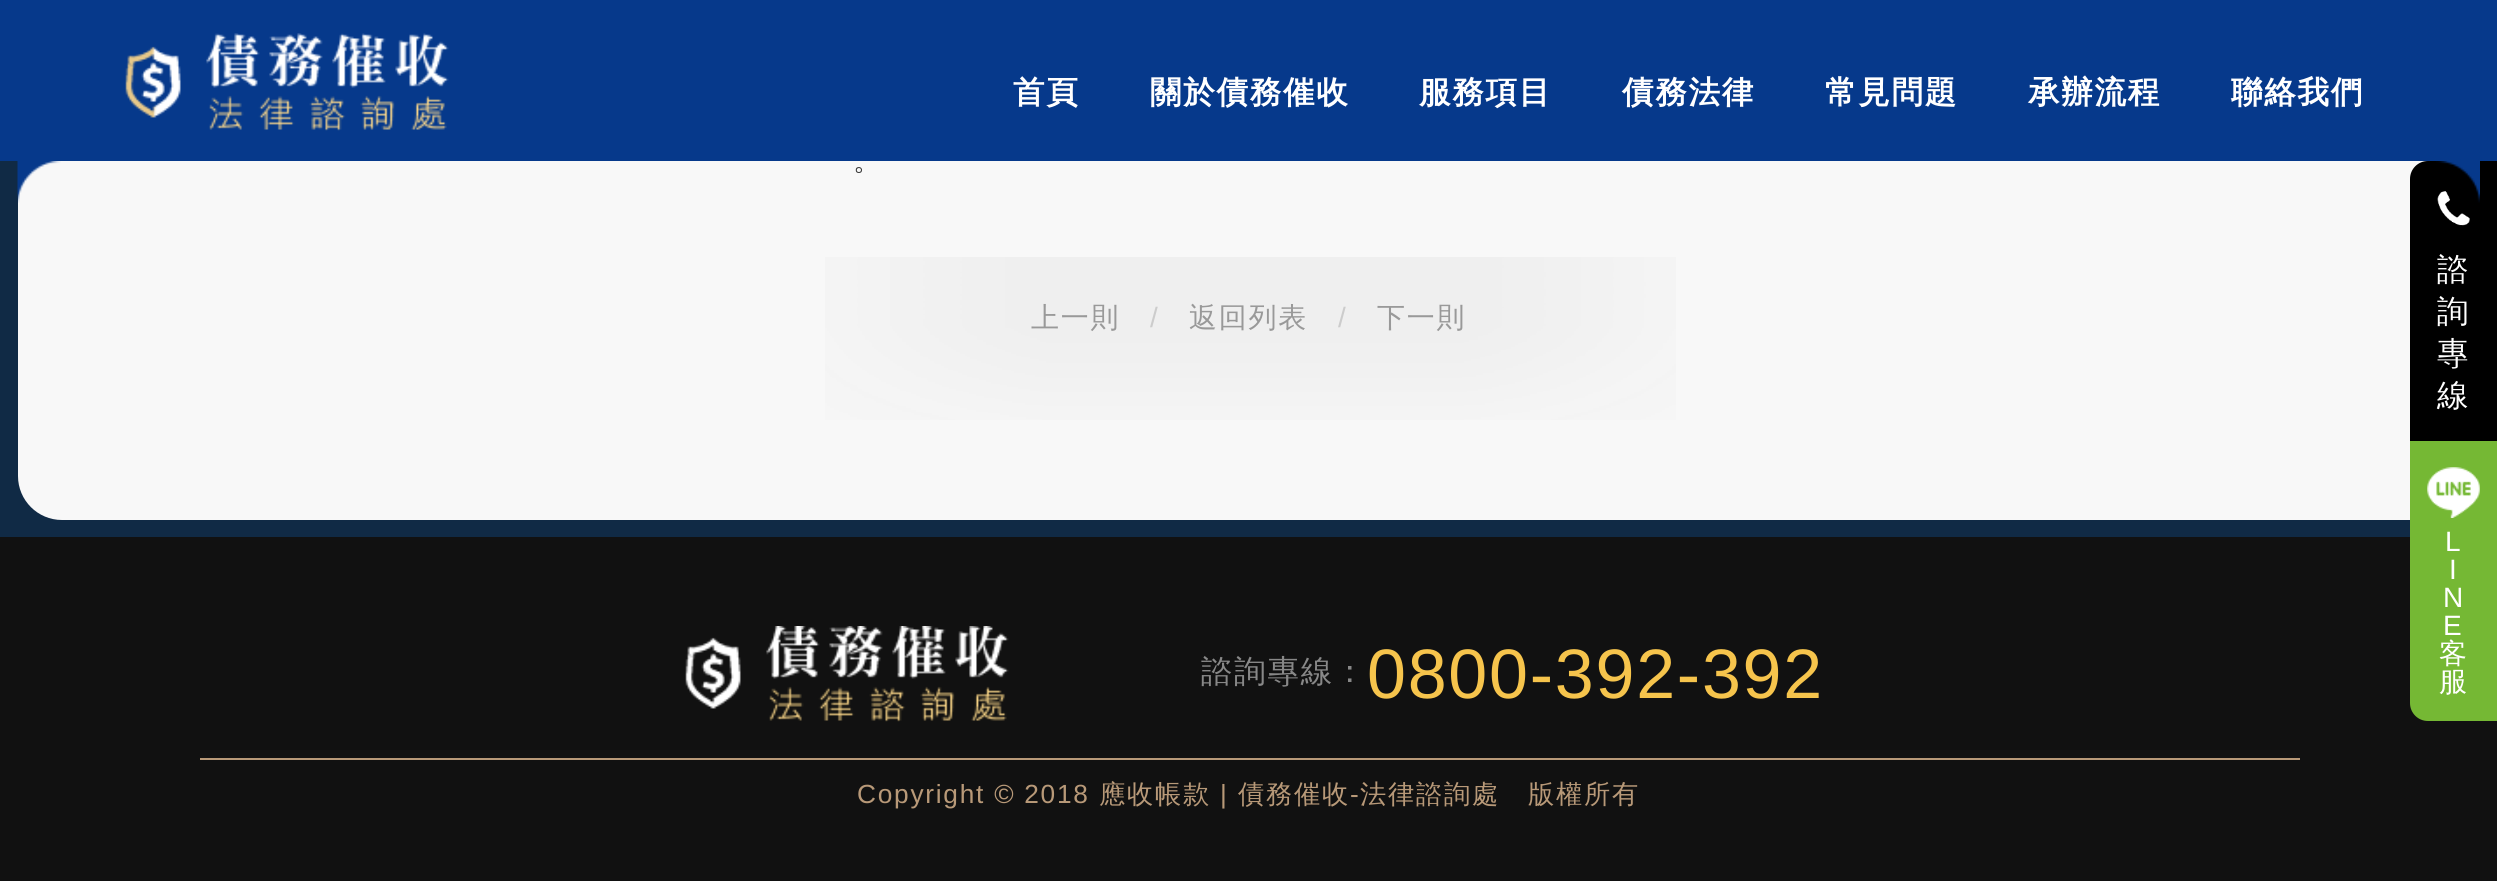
#include <cairo/cairo.h>
#include <math.h>
#include <stddef.h>

static cairo_t *cr;

static void use_color(int r, int g, int b) {
  cairo_set_source_rgb(cr, r / 255.0, g / 255.0, b / 255.0);
}

static void spaced_text(double x, double y, const char *s, double letter, double word) {
  cairo_move_to(cr, x, y);
  while (*s) {
    char ch[5] = {0};
    int n = 0;
    do ch[n++] = *s++; while ((*s & 0xC0) == 0x80);
    cairo_show_text(cr, ch);
    cairo_rel_move_to(cr, letter + word * (*ch == ' '), 0);
  }
}

static void box(double x, double y, double w, double h, int r, int g, int b) {
  use_color(r, g, b);
  cairo_rectangle(cr, x, y, w, h);
  cairo_fill(cr);
}

static void round_rect(double x, double y, double w, double h, double r) {
  cairo_new_sub_path(cr);
  cairo_arc(cr, x + w - r, y + h - r, r, 0, M_PI / 2);
  cairo_arc(cr, x + r, y + h - r, r, M_PI / 2, M_PI);
  cairo_arc(cr, x + r, y + r, r, M_PI, 1.5 * M_PI);
  cairo_arc(cr, x + w - r, y + r, r, 1.5 * M_PI, 2 * M_PI);
  cairo_close_path(cr);
}

static void picture(const char *path, double x, double y, double w, double h) {
  cairo_surface_t *image = cairo_image_surface_create_from_png(path);
  cairo_save(cr);
  cairo_set_source_surface(cr, image, x, y);
  cairo_rectangle(cr, x, y, w, h);
  cairo_fill(cr);
  cairo_restore(cr);
  cairo_surface_destroy(image);
}

static void draw(void) {
  use_color(16, 42, 69);
  cairo_paint(cr);
  use_color(248, 248, 248);
  round_rect(18, -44, 2462, 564, 44);
  cairo_fill(cr);
  box(0, 0, 2497, 161, 6, 57, 139);
  picture("img_01.png", 125, 33, 324, 98);
  picture("img_02.png", 17, 161, 44, 42);
  use_color(0, 0, 0);
  cairo_new_path(cr);
  cairo_move_to(cr, 2428, 161);
  cairo_line_to(cr, 2497, 161);
  cairo_line_to(cr, 2497, 441);
  cairo_line_to(cr, 2410, 441);
  cairo_line_to(cr, 2410, 179);
  cairo_curve_to(cr, 2410, 169, 2418, 161, 2428, 161);
  cairo_close_path(cr);
  cairo_fill(cr);
  picture("img_06.png", 2437, 191, 33, 35);
  picture("img_03.png", 2436, 161, 44, 42);
  picture("img_04.png", 825, 257, 851, 163);
  box(0, 537, 2497, 344, 17, 17, 17);
  picture("img_05.png", 685, 626, 324, 96);
  box(200, 758, 2100, 2, 184, 153, 120);
  use_color(117, 184, 52);
  cairo_new_path(cr);
  cairo_move_to(cr, 2410, 441);
  cairo_line_to(cr, 2497, 441);
  cairo_line_to(cr, 2497, 721);
  cairo_line_to(cr, 2428, 721);
  cairo_curve_to(cr, 2418, 721, 2410, 713, 2410, 703);
  cairo_close_path(cr);
  cairo_fill(cr);
  picture("img_07.png", 2427, 467, 53, 51);
  cairo_select_font_face(cr, "WenQuanYi Zen Hei", CAIRO_FONT_SLANT_NORMAL, CAIRO_FONT_WEIGHT_BOLD);
  cairo_set_font_size(cr, 31.5);
  use_color(255, 255, 255);
  spaced_text(1013, 103, "首頁", 1.75, 0);
  spaced_text(1150, 103, "關於債務催收", 1.75, 0);
  spaced_text(1419, 103, "服務項目", 1.75, 0);
  spaced_text(1622, 103, "債務法律", 1.75, 0);
  spaced_text(1825, 103, "常見問題", 1.75, 0);
  spaced_text(2028, 103, "承辦流程", 1.75, 0);
  spaced_text(2231, 103, "聯絡我們", 1.75, 0);
  cairo_select_font_face(cr, "WenQuanYi Zen Hei Medium", CAIRO_FONT_SLANT_NORMAL, CAIRO_FONT_WEIGHT_NORMAL);
  cairo_set_font_size(cr, 28);
  use_color(51, 51, 51);
  spaced_text(853, 170, "。", 1.75, 0);
  use_color(153, 153, 153);
  spaced_text(1031, 327, "上一則", 1.75, 0);
  cairo_select_font_face(cr, "Liberation Sans", CAIRO_FONT_SLANT_NORMAL, CAIRO_FONT_WEIGHT_NORMAL);
  use_color(204, 204, 204);
  spaced_text(1150, 327, "/", 1.75, 0);
  cairo_select_font_face(cr, "WenQuanYi Zen Hei Medium", CAIRO_FONT_SLANT_NORMAL, CAIRO_FONT_WEIGHT_NORMAL);
  use_color(153, 153, 153);
  spaced_text(1189, 327, "返回列表", 1.75, 0);
  cairo_select_font_face(cr, "Liberation Sans", CAIRO_FONT_SLANT_NORMAL, CAIRO_FONT_WEIGHT_NORMAL);
  use_color(204, 204, 204);
  spaced_text(1338, 327, "/", 1.75, 0);
  cairo_select_font_face(cr, "WenQuanYi Zen Hei Medium", CAIRO_FONT_SLANT_NORMAL, CAIRO_FONT_WEIGHT_NORMAL);
  use_color(153, 153, 153);
  spaced_text(1377, 327, "下一則", 1.75, 0);
  cairo_set_font_size(cr, 31.5);
  use_color(136, 136, 136);
  spaced_text(1201, 682, "諮詢專線：", 1.75, 0);
  cairo_select_font_face(cr, "Liberation Sans", CAIRO_FONT_SLANT_NORMAL, CAIRO_FONT_WEIGHT_NORMAL);
  cairo_set_font_size(cr, 70);
  use_color(246, 196, 76);
  spaced_text(1367, 698, "0800-392-392", 1.75, 0);
  cairo_set_font_size(cr, 26.25);
  use_color(184, 153, 120);
  spaced_text(857, 803, "Copyright © 2018", 1.75, 0);
  cairo_select_font_face(cr, "WenQuanYi Zen Hei Medium", CAIRO_FONT_SLANT_NORMAL, CAIRO_FONT_WEIGHT_NORMAL);
  spaced_text(1099, 803, "應收帳款", 1.75, 0);
  cairo_select_font_face(cr, "Liberation Sans", CAIRO_FONT_SLANT_NORMAL, CAIRO_FONT_WEIGHT_NORMAL);
  spaced_text(1220, 803, "|", 1.75, 0);
  cairo_select_font_face(cr, "WenQuanYi Zen Hei Medium", CAIRO_FONT_SLANT_NORMAL, CAIRO_FONT_WEIGHT_NORMAL);
  spaced_text(1238, 803, "債務催收", 1.75, 0);
  cairo_select_font_face(cr, "Liberation Sans", CAIRO_FONT_SLANT_NORMAL, CAIRO_FONT_WEIGHT_NORMAL);
  spaced_text(1350, 803, "-", 1.75, 0);
  cairo_select_font_face(cr, "WenQuanYi Zen Hei Medium", CAIRO_FONT_SLANT_NORMAL, CAIRO_FONT_WEIGHT_NORMAL);
  spaced_text(1360, 803, "法律諮詢處　版權所有", 1.75, 0);
  cairo_set_font_size(cr, 31.5);
  use_color(255, 255, 255);
  spaced_text(2437, 280, "諮", 1.75, 0);
  spaced_text(2437, 322, "詢", 1.75, 0);
  spaced_text(2437, 364, "專", 1.75, 0);
  spaced_text(2437, 406, "線", 1.75, 0);
  cairo_select_font_face(cr, "Liberation Sans", CAIRO_FONT_SLANT_NORMAL, CAIRO_FONT_WEIGHT_NORMAL);
  cairo_set_font_size(cr, 28);
  spaced_text(2445, 551, "L", 1.75, 0);
  spaced_text(2449, 579, "I", 1.75, 0);
  spaced_text(2443, 607, "N", 1.75, 0);
  spaced_text(2443, 635, "E", 1.75, 0);
  cairo_select_font_face(cr, "WenQuanYi Zen Hei Medium", CAIRO_FONT_SLANT_NORMAL, CAIRO_FONT_WEIGHT_NORMAL);
  spaced_text(2439, 663, "客", 1.75, 0);
  spaced_text(2439, 691, "服", 1.75, 0);
}

int main(void) {
  cairo_surface_t *surface = cairo_image_surface_create(CAIRO_FORMAT_RGB24, 2497, 881);
  cr = cairo_create(surface);
  cairo_font_options_t *options = cairo_font_options_create();
  cairo_font_options_set_hint_metrics(options, CAIRO_HINT_METRICS_OFF);
  cairo_font_options_set_hint_style(options, CAIRO_HINT_STYLE_NONE);
  cairo_set_font_options(cr, options);
  cairo_set_miter_limit(cr, 4);
  draw();
  cairo_surface_write_to_png(surface, "out.png");
  cairo_font_options_destroy(options);
  cairo_destroy(cr);
  cairo_surface_destroy(surface);
  return 0;
}
